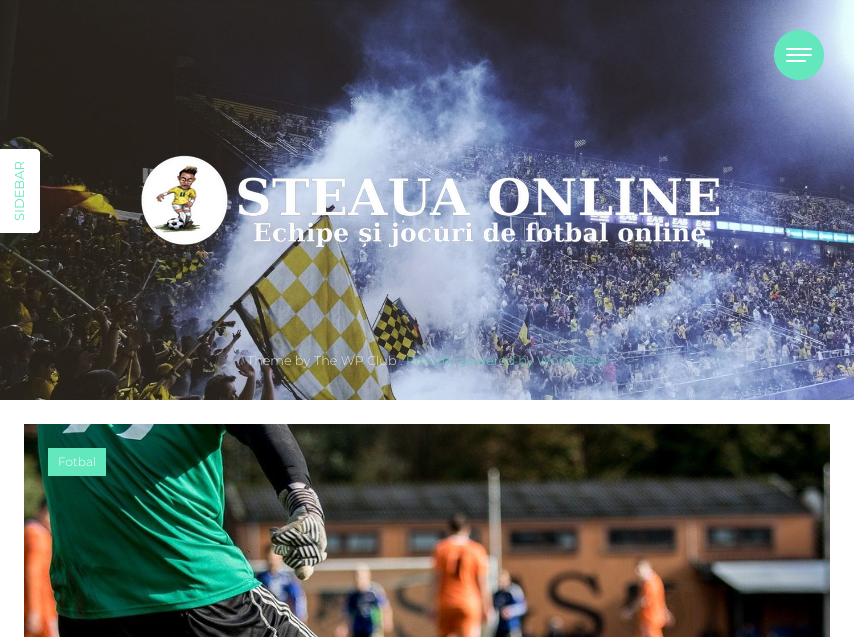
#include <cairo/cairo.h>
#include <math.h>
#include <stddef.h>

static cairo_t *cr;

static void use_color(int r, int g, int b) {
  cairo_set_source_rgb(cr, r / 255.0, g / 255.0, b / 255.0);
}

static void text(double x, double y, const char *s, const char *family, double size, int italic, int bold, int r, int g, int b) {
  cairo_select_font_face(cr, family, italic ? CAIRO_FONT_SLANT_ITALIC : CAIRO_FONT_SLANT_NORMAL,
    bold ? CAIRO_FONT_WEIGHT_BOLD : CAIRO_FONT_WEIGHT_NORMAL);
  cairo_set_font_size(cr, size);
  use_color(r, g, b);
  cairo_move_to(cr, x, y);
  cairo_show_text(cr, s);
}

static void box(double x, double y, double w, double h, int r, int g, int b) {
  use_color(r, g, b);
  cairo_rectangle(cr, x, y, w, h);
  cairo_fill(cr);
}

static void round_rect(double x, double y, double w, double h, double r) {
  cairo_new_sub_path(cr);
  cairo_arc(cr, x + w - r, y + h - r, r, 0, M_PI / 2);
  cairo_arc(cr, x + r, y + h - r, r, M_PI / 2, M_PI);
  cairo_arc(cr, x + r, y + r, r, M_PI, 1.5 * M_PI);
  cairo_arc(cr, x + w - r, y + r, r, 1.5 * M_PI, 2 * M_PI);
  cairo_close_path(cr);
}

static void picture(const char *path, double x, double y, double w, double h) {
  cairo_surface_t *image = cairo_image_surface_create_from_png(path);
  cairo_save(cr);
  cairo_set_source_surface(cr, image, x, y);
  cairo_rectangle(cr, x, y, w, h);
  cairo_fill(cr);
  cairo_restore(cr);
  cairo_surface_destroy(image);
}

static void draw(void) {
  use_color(255, 255, 255);
  cairo_paint(cr);
  picture("img_01.png", 0, 0, 854, 400);
  use_color(99, 231, 188);
  cairo_arc(cr, 799, 55, 25, 0, 2 * M_PI);
  cairo_fill(cr);
  use_color(255, 255, 255);
  round_rect(786, 48, 26, 2, 1);
  cairo_fill(cr);
  round_rect(786, 54, 26, 2, 1);
  cairo_fill(cr);
  round_rect(786, 60, 20, 2, 1);
  cairo_fill(cr);
  cairo_new_path(cr);
  cairo_move_to(cr, 0, 233);
  cairo_line_to(cr, 0, 149);
  cairo_line_to(cr, 36, 149);
  cairo_curve_to(cr, 38, 149, 40, 151, 40, 153);
  cairo_line_to(cr, 40, 229);
  cairo_curve_to(cr, 40, 231, 38, 233, 36, 233);
  cairo_close_path(cr);
  cairo_fill(cr);
  picture("img_02.png", 141, 155, 579, 93);
  picture("img_03.png", 24, 424, 806, 213);
  box(48, 448, 58, 28, 99, 231, 188);
  cairo_save(cr);
  cairo_translate(cr, 24, 221);
  cairo_rotate(cr, -90 * M_PI / 180);
  text(0, 0, "SIDEBAR", "Montserrat", 13, 0, 0, 99, 231, 188);
  cairo_restore(cr);
  text(247, 365, "Theme by", "Montserrat Light", 12.75, 0, 0, 228, 229, 226);
  text(314, 365, "The WP Club", "Montserrat Light", 12.75, 0, 0, 228, 229, 226);
  text(400, 365, ".", "Montserrat Light", 12.75, 0, 0, 219, 223, 230);
  text(406, 365, "Proudly powered by WordPress", "Montserrat Light", 12.75, 0, 0, 105, 213, 184);
  text(58, 466, "Fotbal", "Montserrat Light", 12, 0, 0, 255, 255, 255);
}

int main(void) {
  cairo_surface_t *surface = cairo_image_surface_create(CAIRO_FORMAT_RGB24, 854, 637);
  cr = cairo_create(surface);
  cairo_font_options_t *options = cairo_font_options_create();
  cairo_font_options_set_hint_metrics(options, CAIRO_HINT_METRICS_OFF);
  cairo_font_options_set_hint_style(options, CAIRO_HINT_STYLE_NONE);
  cairo_set_font_options(cr, options);
  cairo_set_miter_limit(cr, 4);
  draw();
  cairo_surface_write_to_png(surface, "out.png");
  cairo_font_options_destroy(options);
  cairo_destroy(cr);
  cairo_surface_destroy(surface);
  return 0;
}
